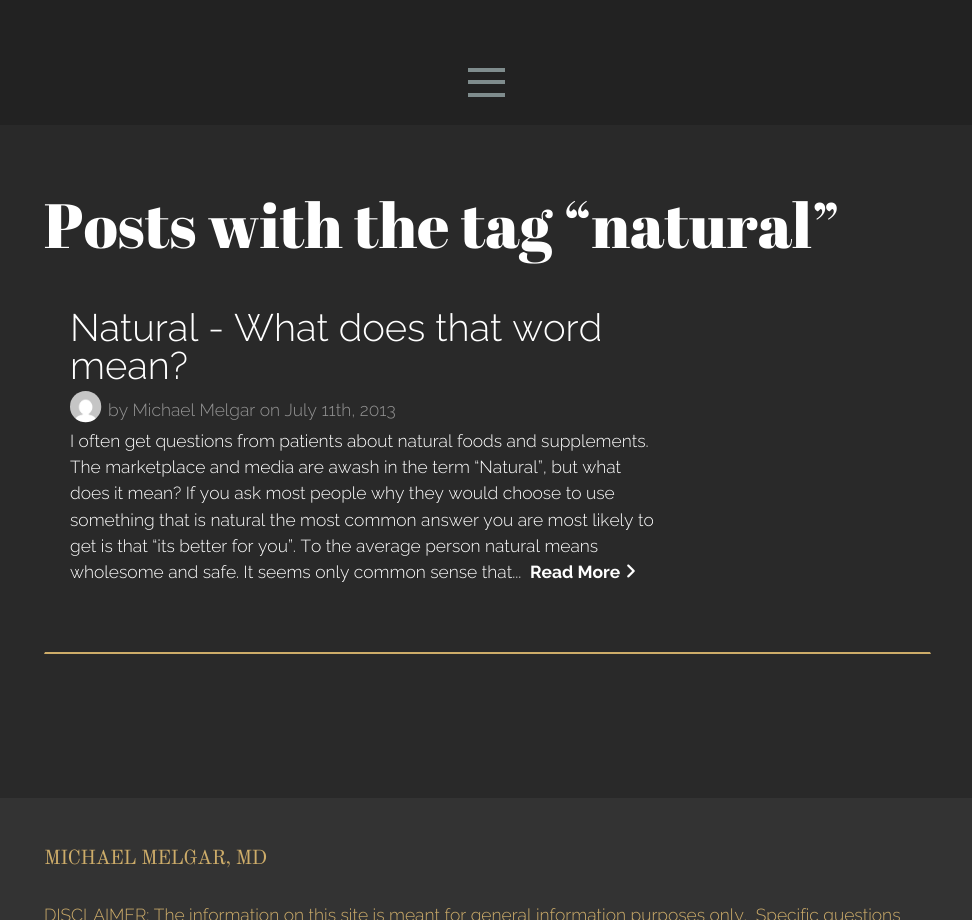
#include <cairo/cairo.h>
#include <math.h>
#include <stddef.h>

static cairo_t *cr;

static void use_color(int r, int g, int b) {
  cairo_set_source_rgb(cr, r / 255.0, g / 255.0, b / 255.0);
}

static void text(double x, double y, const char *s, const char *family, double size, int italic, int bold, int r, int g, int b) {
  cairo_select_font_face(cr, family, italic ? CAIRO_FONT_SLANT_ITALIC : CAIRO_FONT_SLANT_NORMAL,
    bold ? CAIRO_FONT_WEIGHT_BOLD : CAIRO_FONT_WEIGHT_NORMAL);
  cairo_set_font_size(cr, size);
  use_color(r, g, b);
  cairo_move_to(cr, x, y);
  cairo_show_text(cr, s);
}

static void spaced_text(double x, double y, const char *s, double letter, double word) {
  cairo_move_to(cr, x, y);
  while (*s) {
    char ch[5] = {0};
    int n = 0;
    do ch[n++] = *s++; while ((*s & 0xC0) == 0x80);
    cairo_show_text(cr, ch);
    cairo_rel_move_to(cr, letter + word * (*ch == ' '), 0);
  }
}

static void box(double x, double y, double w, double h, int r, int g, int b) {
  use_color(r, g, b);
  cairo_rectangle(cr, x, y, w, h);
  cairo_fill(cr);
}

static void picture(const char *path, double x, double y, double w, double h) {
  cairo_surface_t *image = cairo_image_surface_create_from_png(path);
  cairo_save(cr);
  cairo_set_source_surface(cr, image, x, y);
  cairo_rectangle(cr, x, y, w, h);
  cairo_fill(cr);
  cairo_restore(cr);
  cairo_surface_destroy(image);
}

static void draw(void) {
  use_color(34, 34, 34);
  cairo_paint(cr);
  box(468, 68, 37, 4, 127, 140, 141);
  box(468, 80, 37, 4, 127, 140, 141);
  box(468, 93, 37, 4, 127, 140, 141);
  box(0, 125, 972, 673, 41, 41, 41);
  picture("img_01.png", 70, 391, 32, 32);
  picture("img_02.png", 627, 564, 8, 14);
  use_color(205, 172, 105);
  cairo_new_path(cr);
  cairo_move_to(cr, 931, 654);
  cairo_line_to(cr, 44, 654);
  cairo_line_to(cr, 45, 652);
  cairo_line_to(cr, 930, 652);
  cairo_close_path(cr);
  cairo_fill(cr);
  box(0, 798, 972, 122, 51, 51, 51);
  text(44, 248, "Posts with the tag “natural”", "Abril Fatface", 62.5, 0, 0, 255, 255, 255);
  text(70, 341, "Natural - What does that word", "Raleway Light", 38.25, 0, 0, 255, 255, 255);
  text(70, 379, "mean?", "Raleway Light", 38.25, 0, 0, 255, 255, 255);
  text(108, 416, "by Michael Melgar on July 11th, 2013", "Raleway Light", 17.4, 0, 0, 148, 148, 148);
  text(70, 447, "I often get questions from patients about natural foods and supplements.", "Raleway Light", 17.4, 0, 0, 255, 255, 255);
  text(70, 473, "The marketplace and media are awash in the term “Natural”, but what", "Raleway Light", 17.4, 0, 0, 255, 255, 255);
  text(70, 499, "does it mean? If you ask most people why they would choose to use", "Raleway Light", 17.4, 0, 0, 255, 255, 255);
  text(70, 526, "something that is natural the most common answer you are most likely to", "Raleway Light", 17.4, 0, 0, 255, 255, 255);
  text(70, 552, "get is that “its better for you”. To the average person natural means", "Raleway Light", 17.4, 0, 0, 255, 255, 255);
  text(70, 578, "wholesome and safe. It seems only common sense that...", "Raleway Light", 17.4, 0, 0, 255, 255, 255);
  text(530, 578, "Read More", "Raleway", 17.4, 0, 1, 255, 255, 255);
  cairo_select_font_face(cr, "Old Standard TT", CAIRO_FONT_SLANT_NORMAL, CAIRO_FONT_WEIGHT_NORMAL);
  cairo_set_font_size(cr, 20);
  use_color(205, 172, 105);
  spaced_text(44, 864, "MICHAEL MELGAR, MD", -0.6, 0);
  text(44, 921, "DISCLAIMER: The information on this site is meant for general information purposes only.  Specific questions", "Raleway Light", 17.4, 0, 0, 205, 172, 105);
}

int main(void) {
  cairo_surface_t *surface = cairo_image_surface_create(CAIRO_FORMAT_RGB24, 972, 920);
  cr = cairo_create(surface);
  cairo_font_options_t *options = cairo_font_options_create();
  cairo_font_options_set_hint_metrics(options, CAIRO_HINT_METRICS_OFF);
  cairo_font_options_set_hint_style(options, CAIRO_HINT_STYLE_NONE);
  cairo_set_font_options(cr, options);
  cairo_set_miter_limit(cr, 4);
  draw();
  cairo_surface_write_to_png(surface, "out.png");
  cairo_font_options_destroy(options);
  cairo_destroy(cr);
  cairo_surface_destroy(surface);
  return 0;
}
